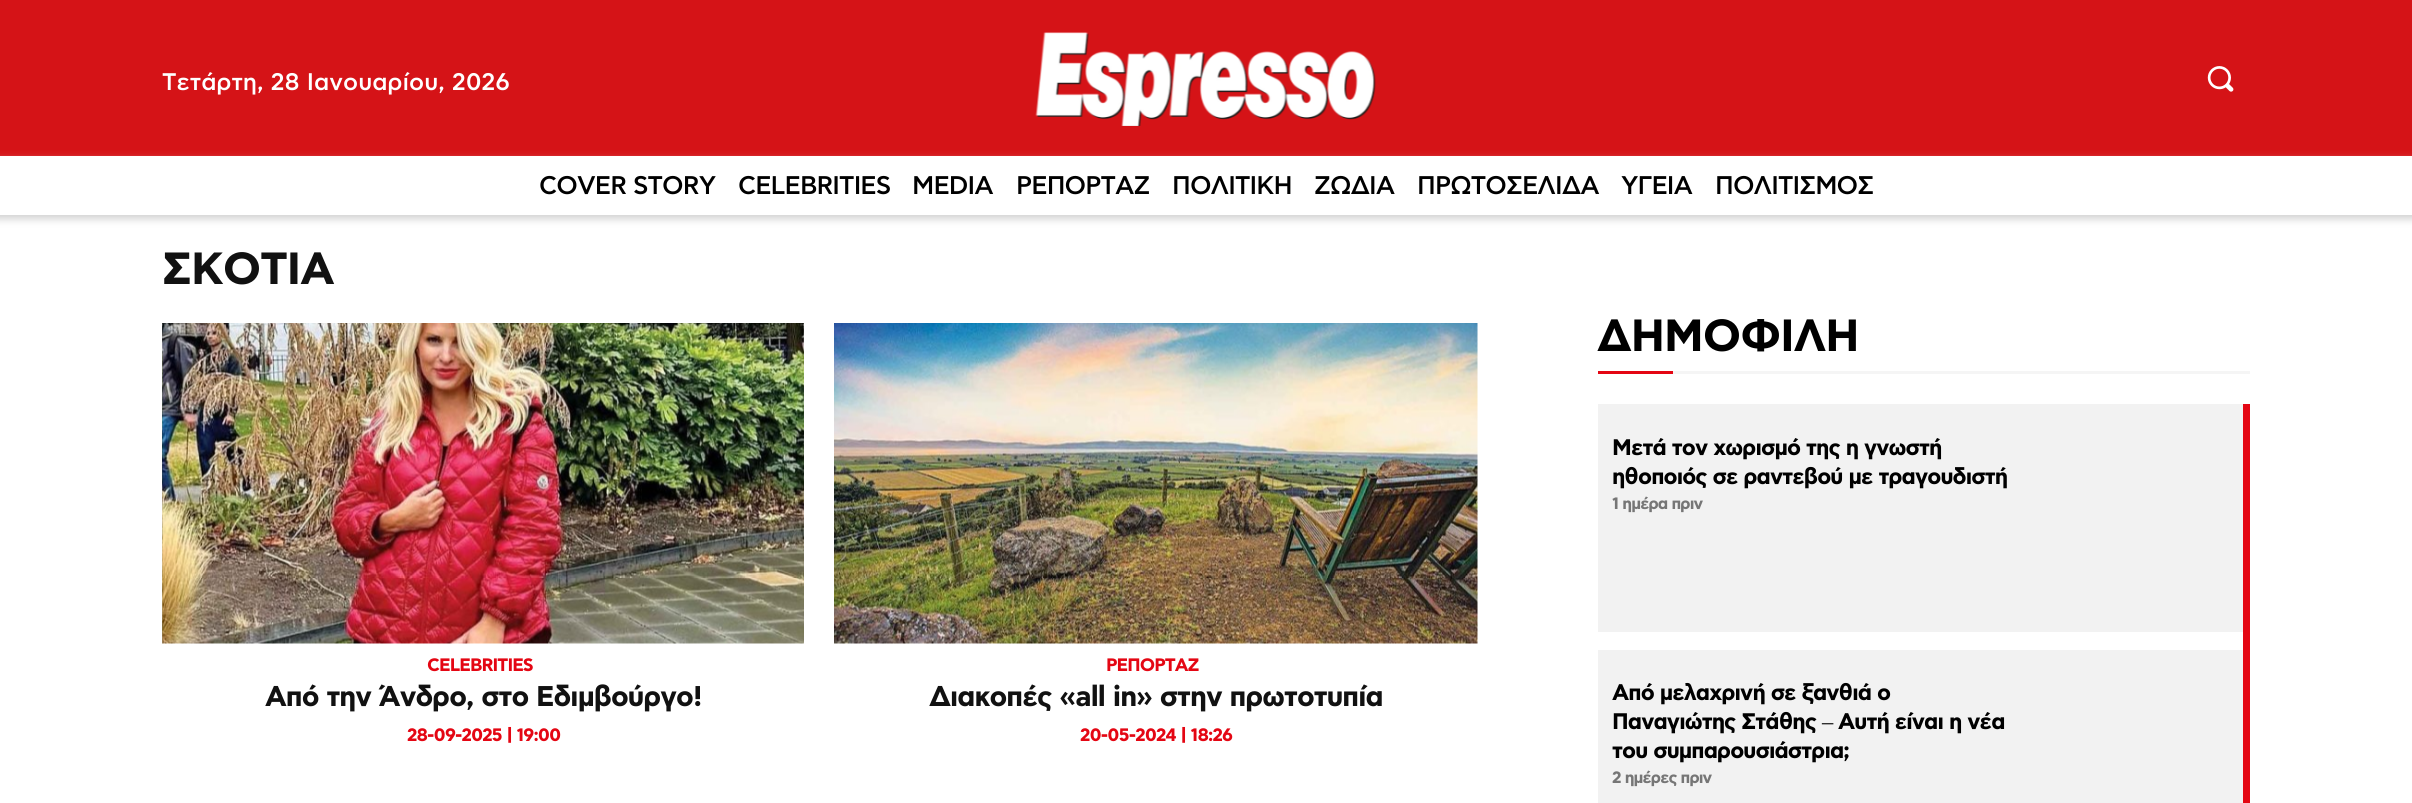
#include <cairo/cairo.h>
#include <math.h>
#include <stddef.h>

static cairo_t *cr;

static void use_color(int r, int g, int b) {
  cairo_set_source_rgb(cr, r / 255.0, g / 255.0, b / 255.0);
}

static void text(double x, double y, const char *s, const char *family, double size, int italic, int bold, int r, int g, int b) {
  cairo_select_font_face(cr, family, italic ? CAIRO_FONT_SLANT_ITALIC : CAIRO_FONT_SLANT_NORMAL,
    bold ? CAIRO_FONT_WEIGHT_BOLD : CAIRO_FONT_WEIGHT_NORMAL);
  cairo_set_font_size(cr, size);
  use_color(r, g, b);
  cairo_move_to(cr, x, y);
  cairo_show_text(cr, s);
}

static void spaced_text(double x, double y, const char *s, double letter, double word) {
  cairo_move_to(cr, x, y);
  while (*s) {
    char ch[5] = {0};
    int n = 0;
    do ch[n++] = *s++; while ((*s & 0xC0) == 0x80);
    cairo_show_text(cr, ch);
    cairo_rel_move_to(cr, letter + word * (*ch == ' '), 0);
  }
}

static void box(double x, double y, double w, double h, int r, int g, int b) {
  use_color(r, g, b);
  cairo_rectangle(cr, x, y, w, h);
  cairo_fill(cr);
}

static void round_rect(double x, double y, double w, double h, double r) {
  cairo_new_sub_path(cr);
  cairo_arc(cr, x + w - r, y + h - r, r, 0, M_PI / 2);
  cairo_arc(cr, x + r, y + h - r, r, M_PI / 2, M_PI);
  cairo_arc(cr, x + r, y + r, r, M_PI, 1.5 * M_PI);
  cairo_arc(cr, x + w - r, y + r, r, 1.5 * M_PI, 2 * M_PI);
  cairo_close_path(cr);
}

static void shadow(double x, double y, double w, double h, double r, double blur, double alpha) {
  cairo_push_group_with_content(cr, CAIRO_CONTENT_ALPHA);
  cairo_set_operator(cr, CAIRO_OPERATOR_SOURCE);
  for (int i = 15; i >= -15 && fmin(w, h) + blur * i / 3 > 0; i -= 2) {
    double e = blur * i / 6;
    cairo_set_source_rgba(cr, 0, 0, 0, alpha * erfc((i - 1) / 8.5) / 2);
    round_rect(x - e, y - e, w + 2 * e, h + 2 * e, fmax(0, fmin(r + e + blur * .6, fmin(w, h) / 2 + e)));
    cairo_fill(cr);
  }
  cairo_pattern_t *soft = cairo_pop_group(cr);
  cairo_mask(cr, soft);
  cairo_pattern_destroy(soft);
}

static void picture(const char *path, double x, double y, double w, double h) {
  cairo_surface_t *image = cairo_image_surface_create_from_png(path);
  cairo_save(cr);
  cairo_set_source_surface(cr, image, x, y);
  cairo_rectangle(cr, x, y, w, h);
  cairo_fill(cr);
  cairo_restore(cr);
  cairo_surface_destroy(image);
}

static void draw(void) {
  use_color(255, 255, 255);
  cairo_paint(cr);
  box(0, 0, 2412, 156, 213, 19, 23);
  picture("img_01.png", 1035, 32, 341, 94);
  picture("img_02.png", 2207, 66, 27, 26);
  use_color(209, 209, 209);
  shadow(-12, 161, 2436, 58, 0, 4, 1);
  box(0, 156, 2412, 59, 255, 255, 255);
  picture("img_03.png", 162, 323, 642, 321);
  picture("img_04.png", 834, 323, 644, 321);
  box(1598, 371, 75, 3, 228, 6, 19);
  box(1673, 371, 577, 3, 245, 245, 245);
  box(2243, 404, 7, 399, 228, 6, 19);
  box(1598, 404, 645, 228, 242, 242, 242);
  box(1598, 650, 645, 153, 242, 242, 242);
  text(162, 90, "Τετάρτη, 28 Ιανουαρίου, 2026", "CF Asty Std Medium", 24, 0, 0, 255, 255, 255);
  cairo_set_font_size(cr, 25.5);
  use_color(0, 0, 0);
  spaced_text(539, 194, "COVER STORY", -0.9, 0);
  spaced_text(738, 194, "CELEBRITIES", -0.9, 0);
  spaced_text(912, 194, "MEDIA", -0.9, 0);
  spaced_text(1016, 194, "ΡΕΠΟΡΤΑΖ", -0.9, 0);
  spaced_text(1172, 194, "ΠΟΛΙΤΙΚΗ", -0.9, 0);
  spaced_text(1314, 194, "ΖΩΔΙΑ", -0.9, 0);
  spaced_text(1417, 194, "ΠΡΩΤΟΣΕΛΙΔΑ", -0.9, 0);
  spaced_text(1621, 194, "ΥΓΕΙΑ", -0.9, 0);
  spaced_text(1715, 194, "ΠΟΛΙΤΙΣΜΟΣ", -0.9, 0);
  cairo_select_font_face(cr, "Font", CAIRO_FONT_SLANT_NORMAL, CAIRO_FONT_WEIGHT_BOLD);
  cairo_set_font_size(cr, 45);
  use_color(17, 17, 17);
  spaced_text(162, 284, "ΣΚΟΤΙΑ", -0.9, 0);
  cairo_set_font_size(cr, 18);
  use_color(228, 6, 19);
  spaced_text(427, 671, "CELEBRITIES", -0.9, 0);
  cairo_set_font_size(cr, 28.5);
  use_color(17, 17, 17);
  spaced_text(265, 706, "Από την Άνδρο, στο Εδιμβούργο!", -0.9, 0);
  cairo_set_font_size(cr, 18);
  use_color(228, 6, 19);
  spaced_text(407, 741, "28-09-2025 | 19:00", -0.9, 0);
  spaced_text(1106, 671, "ΡΕΠΟΡΤΑΖ", -0.9, 0);
  cairo_set_font_size(cr, 28.5);
  use_color(17, 17, 17);
  spaced_text(929, 706, "Διακοπές «all in» στην πρωτοτυπία", -0.9, 0);
  cairo_set_font_size(cr, 18);
  use_color(228, 6, 19);
  spaced_text(1080, 741, "20-05-2024 | 18:26", -0.9, 0);
  cairo_set_font_size(cr, 45);
  use_color(0, 0, 0);
  spaced_text(1597, 351, "ΔΗΜΟΦΙΛΗ", -0.9, 0);
  cairo_set_font_size(cr, 22.5);
  spaced_text(1612, 455, "Μετά τον χωρισμό της η γνωστή", -0.9, 0);
  spaced_text(1612, 484, "ηθοποιός σε ραντεβού με τραγουδιστή", -0.9, 0);
  cairo_set_font_size(cr, 16.5);
  use_color(118, 118, 118);
  spaced_text(1612, 509, "1 ημέρα πριν", -0.9, 0);
  cairo_set_font_size(cr, 22.5);
  use_color(0, 0, 0);
  spaced_text(1612, 700, "Από μελαχρινή σε ξανθιά ο", -0.9, 0);
  spaced_text(1612, 729, "Παναγιώτης Στάθης", -0.9, 0);
  cairo_select_font_face(cr, "Liberation Serif", CAIRO_FONT_SLANT_NORMAL, CAIRO_FONT_WEIGHT_NORMAL);
  spaced_text(1822, 729, "–", -0.9, 0);
  cairo_select_font_face(cr, "Font", CAIRO_FONT_SLANT_NORMAL, CAIRO_FONT_WEIGHT_BOLD);
  spaced_text(1838, 729, "Αυτή είναι η νέα", -0.9, 0);
  spaced_text(1612, 758, "του συμπαρουσιάστρια;", -0.9, 0);
  cairo_set_font_size(cr, 16.5);
  use_color(118, 118, 118);
  spaced_text(1612, 783, "2 ημέρες πριν", -0.9, 0);
}

int main(void) {
  cairo_surface_t *surface = cairo_image_surface_create(CAIRO_FORMAT_RGB24, 2412, 803);
  cr = cairo_create(surface);
  cairo_font_options_t *options = cairo_font_options_create();
  cairo_font_options_set_hint_metrics(options, CAIRO_HINT_METRICS_OFF);
  cairo_font_options_set_hint_style(options, CAIRO_HINT_STYLE_NONE);
  cairo_set_font_options(cr, options);
  cairo_set_miter_limit(cr, 4);
  draw();
  cairo_surface_write_to_png(surface, "out.png");
  cairo_font_options_destroy(options);
  cairo_destroy(cr);
  cairo_surface_destroy(surface);
  return 0;
}
